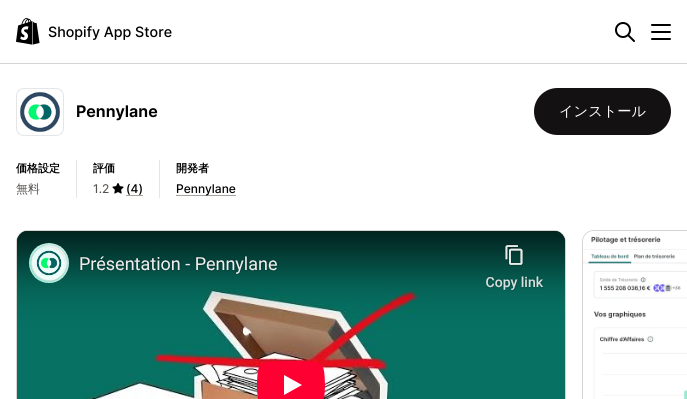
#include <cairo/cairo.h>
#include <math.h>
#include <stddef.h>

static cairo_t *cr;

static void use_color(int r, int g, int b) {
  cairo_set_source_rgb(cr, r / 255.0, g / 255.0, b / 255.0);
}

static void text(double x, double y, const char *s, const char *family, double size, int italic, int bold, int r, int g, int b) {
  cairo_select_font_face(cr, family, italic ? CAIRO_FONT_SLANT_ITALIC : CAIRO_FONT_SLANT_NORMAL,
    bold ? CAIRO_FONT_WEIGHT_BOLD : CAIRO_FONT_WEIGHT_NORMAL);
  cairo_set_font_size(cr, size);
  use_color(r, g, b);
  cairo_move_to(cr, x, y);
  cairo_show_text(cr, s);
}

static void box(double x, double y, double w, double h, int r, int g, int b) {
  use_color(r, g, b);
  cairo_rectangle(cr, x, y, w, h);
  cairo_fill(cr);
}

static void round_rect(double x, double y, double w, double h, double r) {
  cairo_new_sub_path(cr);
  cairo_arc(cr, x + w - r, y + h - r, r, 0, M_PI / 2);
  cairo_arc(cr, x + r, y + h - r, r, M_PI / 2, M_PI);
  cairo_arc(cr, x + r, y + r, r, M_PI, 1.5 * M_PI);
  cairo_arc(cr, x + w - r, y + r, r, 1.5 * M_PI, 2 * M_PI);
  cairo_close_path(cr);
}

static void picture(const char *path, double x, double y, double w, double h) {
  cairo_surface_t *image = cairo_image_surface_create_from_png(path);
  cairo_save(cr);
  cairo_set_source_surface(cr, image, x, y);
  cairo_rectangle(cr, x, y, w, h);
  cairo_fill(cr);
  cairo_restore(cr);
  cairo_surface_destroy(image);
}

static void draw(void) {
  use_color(255, 255, 255);
  cairo_paint(cr);
  box(0, 63, 687, 1, 214, 211, 209);
  picture("img_01.png", 16, 18, 24, 27);
  picture("img_02.png", 615, 22, 20, 20);
  picture("img_03.png", 651, 24, 20, 16);
  picture("img_04.png", 20, 92, 40, 40);
  round_rect(16.5, 88.5, 47, 47, 7.5);
  use_color(230, 230, 230);
  cairo_set_line_width(cr, 1);
  cairo_stroke(cr);
  box(76, 160, 1, 38, 231, 229, 228);
  box(159, 160, 1, 38, 231, 229, 228);
  picture("img_05.png", 112, 183, 12, 11);
  box(126, 195, 17, 1, 168, 162, 159);
  box(176, 195, 60, 1, 168, 162, 159);
  use_color(19, 17, 17);
  round_rect(534, 88, 137, 47, 23.5);
  cairo_fill(cr);
  round_rect(16.5, 230.5, 549, 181, 11.5);
  use_color(214, 211, 209);
  cairo_stroke(cr);
  picture("img_06.png", 17, 231, 548, 168);
  round_rect(582.5, 230.5, 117, 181, 11.5);
  cairo_stroke(cr);
  picture("img_07.png", 583, 231, 104, 168);
  text(48, 37, "Shopify App Store", "Inter Medium", 14.25, 0, 0, 0, 0, 0);
  text(76, 117, "Pennylane", "Inter SemiBold", 16, 0, 0, 0, 0, 0);
  text(16, 172, "価格設定", "WenQuanYi Zen Hei", 11, 0, 1, 0, 0, 0);
  text(16, 193, "無料", "WenQuanYi Zen Hei Medium", 12, 0, 0, 86, 82, 78);
  text(93, 172, "評価", "WenQuanYi Zen Hei", 11, 0, 1, 0, 0, 0);
  text(93, 193, "1.2", "Inter", 12, 0, 0, 86, 82, 78);
  text(126, 193, "(4)", "Inter Medium", 12, 0, 0, 0, 0, 0);
  text(176, 172, "開発者", "WenQuanYi Zen Hei", 11, 0, 1, 0, 0, 0);
  text(176, 193, "Pennylane", "Inter Medium", 12, 0, 0, 0, 0, 0);
  text(559, 116, "インストール", "WenQuanYi Zen Hei Medium", 14.25, 0, 0, 255, 255, 255);
}

int main(void) {
  cairo_surface_t *surface = cairo_image_surface_create(CAIRO_FORMAT_RGB24, 687, 399);
  cr = cairo_create(surface);
  cairo_font_options_t *options = cairo_font_options_create();
  cairo_font_options_set_hint_metrics(options, CAIRO_HINT_METRICS_OFF);
  cairo_font_options_set_hint_style(options, CAIRO_HINT_STYLE_NONE);
  cairo_set_font_options(cr, options);
  cairo_set_miter_limit(cr, 4);
  draw();
  cairo_surface_write_to_png(surface, "out.png");
  cairo_font_options_destroy(options);
  cairo_destroy(cr);
  cairo_surface_destroy(surface);
  return 0;
}
